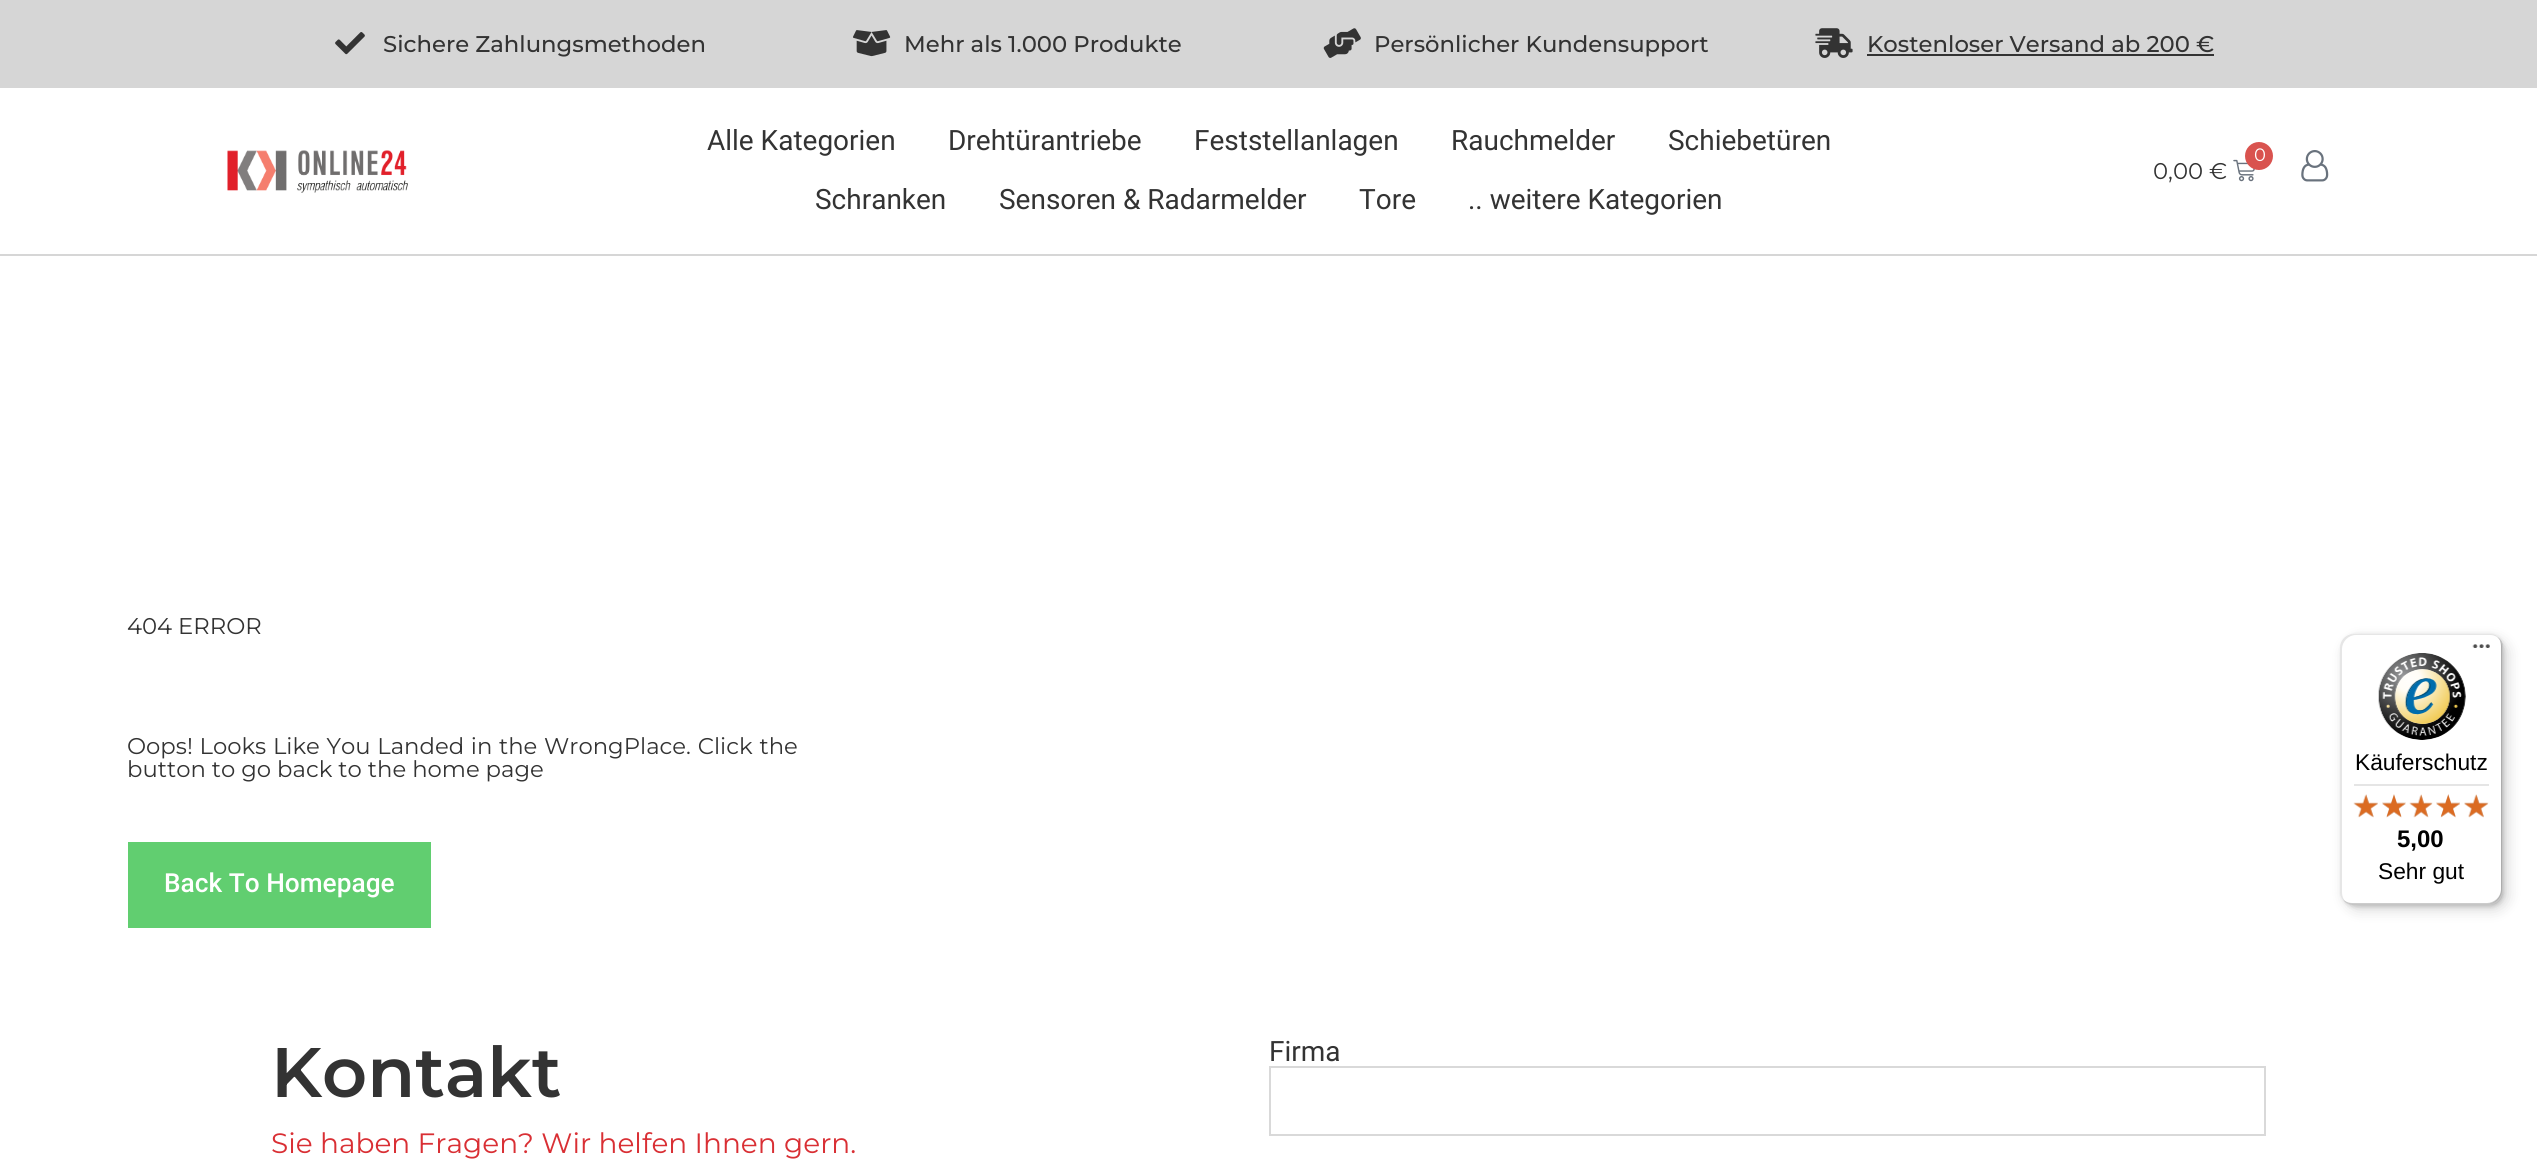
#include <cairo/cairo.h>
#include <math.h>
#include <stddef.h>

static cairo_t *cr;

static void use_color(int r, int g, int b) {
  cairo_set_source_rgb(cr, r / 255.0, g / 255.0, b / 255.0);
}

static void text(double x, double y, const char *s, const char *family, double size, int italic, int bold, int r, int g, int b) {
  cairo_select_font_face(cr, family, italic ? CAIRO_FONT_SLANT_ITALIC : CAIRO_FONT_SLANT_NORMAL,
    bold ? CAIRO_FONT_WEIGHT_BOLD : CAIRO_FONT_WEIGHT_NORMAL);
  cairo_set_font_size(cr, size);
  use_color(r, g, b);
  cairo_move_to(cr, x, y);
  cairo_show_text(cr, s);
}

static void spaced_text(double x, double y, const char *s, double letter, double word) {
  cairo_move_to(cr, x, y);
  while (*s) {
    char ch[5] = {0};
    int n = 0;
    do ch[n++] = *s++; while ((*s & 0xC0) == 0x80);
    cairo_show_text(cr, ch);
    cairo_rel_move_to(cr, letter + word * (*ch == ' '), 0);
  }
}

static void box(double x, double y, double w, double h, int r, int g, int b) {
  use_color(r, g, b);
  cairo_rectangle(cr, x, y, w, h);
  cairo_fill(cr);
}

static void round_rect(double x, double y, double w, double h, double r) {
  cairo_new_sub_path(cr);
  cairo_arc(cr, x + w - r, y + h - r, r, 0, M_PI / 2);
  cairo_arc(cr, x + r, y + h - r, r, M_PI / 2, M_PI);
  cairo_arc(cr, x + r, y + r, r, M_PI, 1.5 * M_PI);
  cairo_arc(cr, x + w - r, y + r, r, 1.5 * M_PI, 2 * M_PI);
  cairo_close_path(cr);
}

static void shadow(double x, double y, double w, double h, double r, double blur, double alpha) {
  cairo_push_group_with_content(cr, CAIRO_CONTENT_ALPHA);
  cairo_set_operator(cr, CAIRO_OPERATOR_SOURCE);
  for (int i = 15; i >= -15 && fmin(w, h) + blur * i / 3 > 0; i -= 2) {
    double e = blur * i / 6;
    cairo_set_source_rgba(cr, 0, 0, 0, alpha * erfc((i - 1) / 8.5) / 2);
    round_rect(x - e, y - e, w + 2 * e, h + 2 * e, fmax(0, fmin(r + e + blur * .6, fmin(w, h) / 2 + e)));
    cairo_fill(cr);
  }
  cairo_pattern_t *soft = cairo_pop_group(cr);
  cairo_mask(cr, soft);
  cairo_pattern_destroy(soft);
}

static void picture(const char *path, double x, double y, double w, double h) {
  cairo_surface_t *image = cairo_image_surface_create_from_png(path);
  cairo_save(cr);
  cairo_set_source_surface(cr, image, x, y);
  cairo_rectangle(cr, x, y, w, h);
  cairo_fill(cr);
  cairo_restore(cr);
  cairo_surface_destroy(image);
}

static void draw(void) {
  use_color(255, 255, 255);
  cairo_paint(cr);
  box(0, 0, 2537, 88, 214, 214, 214);
  picture("img_01.png", 335, 32, 30, 23);
  picture("img_02.png", 853, 30, 38, 27);
  picture("img_03.png", 1323, 28, 38, 30);
  picture("img_04.png", 1815, 28, 38, 30);
  box(1867, 54, 347, 2, 51, 51, 51);
  box(0, 254, 2537, 2, 214, 214, 214);
  picture("img_05.png", 227, 150, 181, 43);
  picture("img_06.png", 2233, 159, 22, 23);
  use_color(217, 83, 79);
  cairo_arc(cr, 2259, 156, 14, 0, 2 * M_PI);
  cairo_fill(cr);
  picture("img_07.png", 2301, 150, 28, 32);
  box(128, 842, 303, 86, 97, 206, 112);
  use_color(0, 0, 0);
  shadow(2345, 639, 163, 271, 14, 7, 0.15);
  shadow(2342, 635, 162, 272, 14, 2, 0.15);
  use_color(255, 255, 255);
  round_rect(2340, 634, 163, 271, 14);
  cairo_fill(cr);
  cairo_set_source_rgba(cr, 0, 0, 0, 0.1);
  cairo_new_path(cr);
  cairo_move_to(cr, 2356, 635);
  cairo_line_to(cr, 2490, 635);
  cairo_curve_to(cr, 2494, 635, 2498, 637, 2500, 640);
  cairo_curve_to(cr, 2498, 636, 2494, 634, 2489, 634);
  cairo_line_to(cr, 2354, 634);
  cairo_curve_to(cr, 2346, 634, 2340, 640, 2340, 648);
  cairo_line_to(cr, 2340, 891);
  cairo_curve_to(cr, 2340, 897, 2343, 901, 2348, 904);
  cairo_curve_to(cr, 2344, 901, 2342, 897, 2342, 892);
  cairo_line_to(cr, 2342, 649);
  cairo_curve_to(cr, 2342, 642, 2348, 635, 2356, 635);
  cairo_close_path(cr);
  cairo_fill(cr);
  cairo_set_source_rgba(cr, 0, 0, 0, 0.2);
  cairo_new_path(cr);
  cairo_move_to(cr, 2344, 900);
  cairo_curve_to(cr, 2346, 903, 2350, 905, 2354, 905);
  cairo_line_to(cr, 2489, 905);
  cairo_curve_to(cr, 2497, 905, 2503, 899, 2503, 891);
  cairo_line_to(cr, 2503, 648);
  cairo_curve_to(cr, 2503, 643, 2501, 639, 2497, 637);
  cairo_curve_to(cr, 2500, 639, 2501, 642, 2501, 646);
  cairo_line_to(cr, 2501, 889);
  cairo_curve_to(cr, 2501, 897, 2494, 903, 2487, 903);
  cairo_line_to(cr, 2352, 903);
  cairo_curve_to(cr, 2349, 903, 2346, 902, 2344, 900);
  cairo_close_path(cr);
  cairo_fill(cr);
  cairo_set_source_rgba(cr, 0.196, 0.196, 0.196, 0.2);
  cairo_new_path(cr);
  cairo_move_to(cr, 2343, 899);
  cairo_curve_to(cr, 2345, 903, 2349, 905, 2354, 905);
  cairo_line_to(cr, 2489, 905);
  cairo_curve_to(cr, 2497, 905, 2503, 899, 2503, 891);
  cairo_line_to(cr, 2503, 648);
  cairo_curve_to(cr, 2503, 643, 2501, 639, 2497, 637);
  cairo_curve_to(cr, 2500, 639, 2501, 643, 2501, 646);
  cairo_line_to(cr, 2501, 890);
  cairo_curve_to(cr, 2501, 897, 2495, 904, 2487, 904);
  cairo_line_to(cr, 2353, 904);
  cairo_curve_to(cr, 2349, 904, 2345, 902, 2343, 899);
  cairo_close_path(cr);
  cairo_fill(cr);
  cairo_set_source_rgba(cr, 1, 1, 1, 0.3);
  cairo_new_path(cr);
  cairo_move_to(cr, 2345, 901);
  cairo_curve_to(cr, 2347, 904, 2350, 905, 2354, 905);
  cairo_line_to(cr, 2489, 905);
  cairo_curve_to(cr, 2497, 905, 2503, 899, 2503, 891);
  cairo_line_to(cr, 2503, 648);
  cairo_curve_to(cr, 2503, 643, 2501, 639, 2497, 637);
  cairo_curve_to(cr, 2500, 639, 2502, 643, 2502, 647);
  cairo_line_to(cr, 2502, 890);
  cairo_curve_to(cr, 2502, 898, 2495, 904, 2488, 904);
  cairo_line_to(cr, 2353, 904);
  cairo_curve_to(cr, 2350, 904, 2347, 903, 2345, 901);
  cairo_close_path(cr);
  cairo_fill(cr);
  picture("img_08.png", 2472, 644, 18, 4);
  picture("img_09.png", 2378, 653, 88, 87);
  box(2354, 784, 135, 2, 229, 229, 229);
  picture("img_10.png", 2353, 795, 25, 22);
  picture("img_11.png", 2382, 794, 24, 23);
  picture("img_12.png", 2409, 795, 24, 22);
  picture("img_13.png", 2436, 794, 24, 23);
  picture("img_14.png", 2464, 795, 24, 22);
  picture("img_15.png", 2353, 794, 25, 24);
  picture("img_16.png", 2382, 794, 24, 24);
  picture("img_17.png", 2409, 794, 24, 24);
  picture("img_18.png", 2436, 794, 24, 24);
  picture("img_19.png", 2464, 794, 25, 24);
  cairo_rectangle(cr, 1270, 1067, 995, 68);
  use_color(217, 217, 217);
  cairo_stroke(cr);
  text(383, 52, "Sichere Zahlungsmethoden", "Montserrat Thin", 22.75, 0, 0, 51, 51, 51);
  text(904, 52, "Mehr als 1.000 Produkte", "Montserrat Thin", 22.75, 0, 0, 51, 51, 51);
  text(1374, 52, "Persönlicher Kundensupport", "Montserrat Thin", 22.75, 0, 0, 51, 51, 51);
  text(1867, 52, "Kostenloser Versand ab 200 €", "Montserrat Thin", 22.75, 0, 0, 51, 51, 51);
  text(707, 150, "Alle Kategorien", "Roboto", 28, 0, 0, 51, 51, 51);
  text(948, 150, "Drehtürantriebe", "Roboto", 28, 0, 0, 51, 51, 51);
  text(1194, 150, "Feststellanlagen", "Roboto", 28, 0, 0, 51, 51, 51);
  text(1451, 150, "Rauchmelder", "Roboto", 28, 0, 0, 51, 51, 51);
  text(1668, 150, "Schiebetüren", "Roboto", 28, 0, 0, 51, 51, 51);
  text(815, 209, "Schranken", "Roboto", 28, 0, 0, 51, 51, 51);
  text(999, 209, "Sensoren & Radarmelder", "Roboto", 28, 0, 0, 51, 51, 51);
  text(1359, 209, "Tore", "Roboto", 28, 0, 0, 51, 51, 51);
  text(1468, 209, ".. weitere Kategorien", "Roboto", 28, 0, 0, 51, 51, 51);
  text(2254, 161, "0", "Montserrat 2 Thin", 18, 0, 0, 255, 255, 255);
  text(2153, 179, "0,00 €", "Montserrat 2 Thin", 22.75, 0, 0, 51, 51, 51);
  text(127, 634, "404 ERROR", "Montserrat 2 Thin", 22.75, 0, 0, 51, 51, 51);
  spaced_text(127, 754, "Oops! Looks Like You Landed in the WrongPlace. Click the", 0, 0.75);
  text(127, 777, "button to go back to the home page", "Montserrat 2 Thin", 22.75, 0, 0, 51, 51, 51);
  text(164, 892, "Back To Homepage", "Roboto Medium", 26.25, 0, 0, 255, 255, 255);
  text(2355, 770, "Käuferschutz", "Liberation Sans", 22.75, 0, 0, 0, 0, 0);
  text(2397, 847, "5,00", "Liberation Sans", 24, 0, 1, 0, 0, 0);
  text(2378, 879, "Sehr gut", "Liberation Sans", 22.75, 0, 0, 0, 0, 0);
  text(271, 1097, "Kontakt", "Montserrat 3 Thin", 70, 0, 0, 51, 51, 51);
  text(271, 1153, "Sie haben Fragen? Wir helfen Ihnen gern.", "Montserrat 2 Thin", 28, 0, 0, 217, 47, 52);
  text(1269, 1061, "Firma", "Roboto", 28, 0, 0, 51, 51, 51);
}

int main(void) {
  cairo_surface_t *surface = cairo_image_surface_create(CAIRO_FORMAT_RGB24, 2537, 1174);
  cr = cairo_create(surface);
  cairo_font_options_t *options = cairo_font_options_create();
  cairo_font_options_set_hint_metrics(options, CAIRO_HINT_METRICS_OFF);
  cairo_font_options_set_hint_style(options, CAIRO_HINT_STYLE_NONE);
  cairo_set_font_options(cr, options);
  cairo_set_miter_limit(cr, 4);
  draw();
  cairo_surface_write_to_png(surface, "out.png");
  cairo_font_options_destroy(options);
  cairo_destroy(cr);
  cairo_surface_destroy(surface);
  return 0;
}
